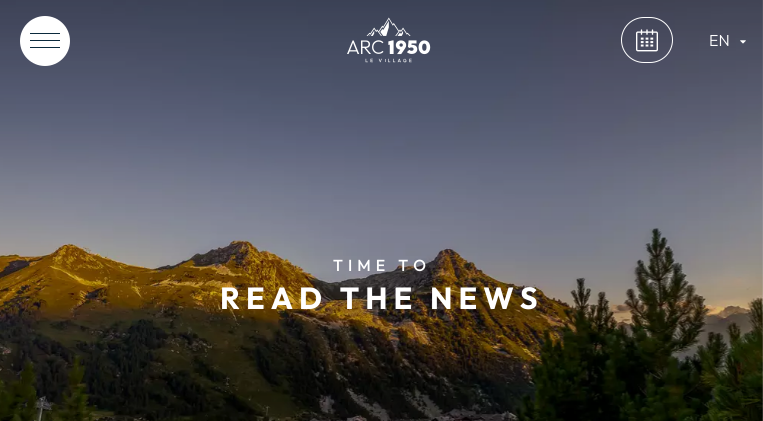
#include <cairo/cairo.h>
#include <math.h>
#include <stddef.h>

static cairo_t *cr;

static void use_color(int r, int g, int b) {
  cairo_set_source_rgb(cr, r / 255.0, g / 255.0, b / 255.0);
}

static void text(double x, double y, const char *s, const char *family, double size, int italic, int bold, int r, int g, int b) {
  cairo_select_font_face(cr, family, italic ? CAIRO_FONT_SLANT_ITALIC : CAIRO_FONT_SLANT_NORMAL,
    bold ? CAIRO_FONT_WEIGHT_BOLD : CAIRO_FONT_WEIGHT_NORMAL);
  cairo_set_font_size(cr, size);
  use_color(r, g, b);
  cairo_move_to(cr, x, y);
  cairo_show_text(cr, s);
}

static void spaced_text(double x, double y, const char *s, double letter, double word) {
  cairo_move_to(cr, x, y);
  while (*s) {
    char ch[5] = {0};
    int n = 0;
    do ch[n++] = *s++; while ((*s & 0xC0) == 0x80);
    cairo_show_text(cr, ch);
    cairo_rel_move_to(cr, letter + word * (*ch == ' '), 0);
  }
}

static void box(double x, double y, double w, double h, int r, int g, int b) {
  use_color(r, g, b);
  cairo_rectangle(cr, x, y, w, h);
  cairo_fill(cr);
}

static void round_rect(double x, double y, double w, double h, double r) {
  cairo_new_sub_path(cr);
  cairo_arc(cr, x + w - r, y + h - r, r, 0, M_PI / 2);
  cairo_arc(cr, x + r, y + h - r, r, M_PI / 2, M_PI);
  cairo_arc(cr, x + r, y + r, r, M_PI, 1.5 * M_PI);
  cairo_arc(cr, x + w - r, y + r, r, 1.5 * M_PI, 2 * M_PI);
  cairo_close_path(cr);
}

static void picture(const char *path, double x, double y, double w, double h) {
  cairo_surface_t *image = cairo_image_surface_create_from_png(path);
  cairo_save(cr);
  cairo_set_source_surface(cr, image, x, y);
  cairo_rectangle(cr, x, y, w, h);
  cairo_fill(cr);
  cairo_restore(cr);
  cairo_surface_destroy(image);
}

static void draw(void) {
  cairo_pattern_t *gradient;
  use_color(255, 255, 255);
  cairo_paint(cr);
  picture("img_04.png", 0, 0, 763, 421);
  gradient = cairo_pattern_create_linear(382, 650, 382, 0);
  cairo_pattern_add_color_stop_rgba(gradient, 0.3, 0, 0, 0, 0);
  cairo_pattern_add_color_stop_rgba(gradient, 1, 0, 0, 0, 0.4);
  cairo_set_source(cr, gradient);
  cairo_pattern_destroy(gradient);
  cairo_rectangle(cr, 0, 0, 763, 421);
  cairo_fill(cr);
  use_color(255, 255, 255);
  cairo_arc(cr, 45, 41, 25, 0, 2 * M_PI);
  cairo_fill(cr);
  box(30, 33, 30, 1, 11, 42, 61);
  box(30, 40, 30, 1, 11, 42, 61);
  box(30, 47, 30, 1, 11, 42, 61);
  picture("img_01.png", 347, 17, 84, 46);
  round_rect(621.5, 17.5, 51, 45, 22.5);
  use_color(255, 255, 255);
  cairo_set_line_width(cr, 1);
  cairo_stroke(cr);
  picture("img_02.png", 636, 29, 22, 23);
  picture("img_03.png", 740, 40, 6, 4);
  text(709, 46, "EN", "Outfit Light", 16, 0, 0, 255, 255, 255);
  cairo_select_font_face(cr, "Outfit Medium", CAIRO_FONT_SLANT_NORMAL, CAIRO_FONT_WEIGHT_NORMAL);
  spaced_text(333, 271, "TIME TO", 5, 0);
  cairo_select_font_face(cr, "Outfit", CAIRO_FONT_SLANT_NORMAL, CAIRO_FONT_WEIGHT_BOLD);
  cairo_set_font_size(cr, 30.5);
  spaced_text(220, 309, "READ THE NEWS", 6, 0);
}

int main(void) {
  cairo_surface_t *surface = cairo_image_surface_create(CAIRO_FORMAT_RGB24, 763, 421);
  cr = cairo_create(surface);
  cairo_font_options_t *options = cairo_font_options_create();
  cairo_font_options_set_hint_metrics(options, CAIRO_HINT_METRICS_OFF);
  cairo_font_options_set_hint_style(options, CAIRO_HINT_STYLE_NONE);
  cairo_set_font_options(cr, options);
  cairo_set_miter_limit(cr, 4);
  draw();
  cairo_surface_write_to_png(surface, "out.png");
  cairo_font_options_destroy(options);
  cairo_destroy(cr);
  cairo_surface_destroy(surface);
  return 0;
}
